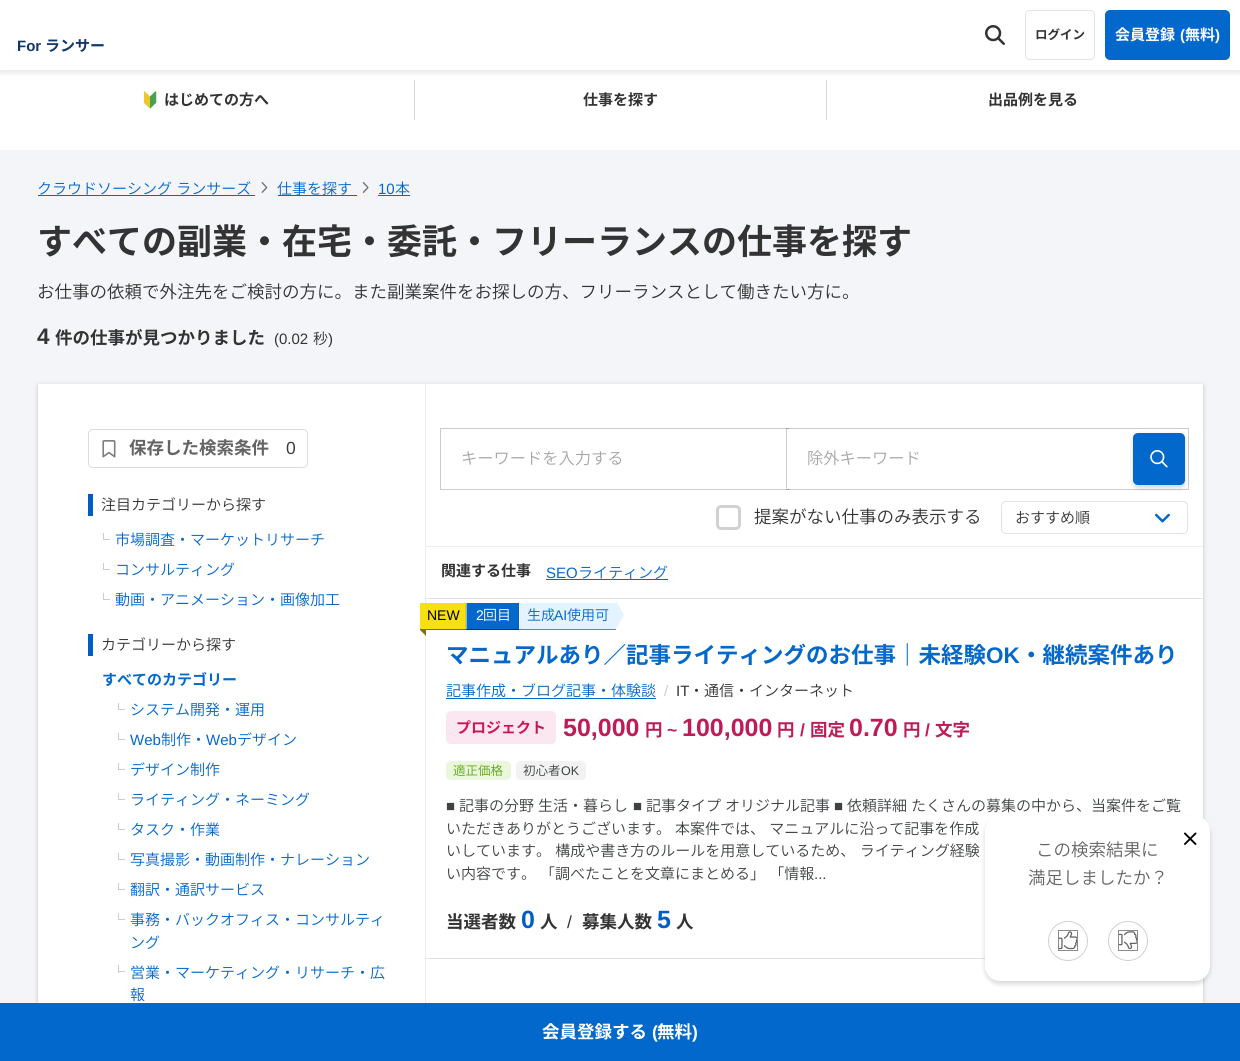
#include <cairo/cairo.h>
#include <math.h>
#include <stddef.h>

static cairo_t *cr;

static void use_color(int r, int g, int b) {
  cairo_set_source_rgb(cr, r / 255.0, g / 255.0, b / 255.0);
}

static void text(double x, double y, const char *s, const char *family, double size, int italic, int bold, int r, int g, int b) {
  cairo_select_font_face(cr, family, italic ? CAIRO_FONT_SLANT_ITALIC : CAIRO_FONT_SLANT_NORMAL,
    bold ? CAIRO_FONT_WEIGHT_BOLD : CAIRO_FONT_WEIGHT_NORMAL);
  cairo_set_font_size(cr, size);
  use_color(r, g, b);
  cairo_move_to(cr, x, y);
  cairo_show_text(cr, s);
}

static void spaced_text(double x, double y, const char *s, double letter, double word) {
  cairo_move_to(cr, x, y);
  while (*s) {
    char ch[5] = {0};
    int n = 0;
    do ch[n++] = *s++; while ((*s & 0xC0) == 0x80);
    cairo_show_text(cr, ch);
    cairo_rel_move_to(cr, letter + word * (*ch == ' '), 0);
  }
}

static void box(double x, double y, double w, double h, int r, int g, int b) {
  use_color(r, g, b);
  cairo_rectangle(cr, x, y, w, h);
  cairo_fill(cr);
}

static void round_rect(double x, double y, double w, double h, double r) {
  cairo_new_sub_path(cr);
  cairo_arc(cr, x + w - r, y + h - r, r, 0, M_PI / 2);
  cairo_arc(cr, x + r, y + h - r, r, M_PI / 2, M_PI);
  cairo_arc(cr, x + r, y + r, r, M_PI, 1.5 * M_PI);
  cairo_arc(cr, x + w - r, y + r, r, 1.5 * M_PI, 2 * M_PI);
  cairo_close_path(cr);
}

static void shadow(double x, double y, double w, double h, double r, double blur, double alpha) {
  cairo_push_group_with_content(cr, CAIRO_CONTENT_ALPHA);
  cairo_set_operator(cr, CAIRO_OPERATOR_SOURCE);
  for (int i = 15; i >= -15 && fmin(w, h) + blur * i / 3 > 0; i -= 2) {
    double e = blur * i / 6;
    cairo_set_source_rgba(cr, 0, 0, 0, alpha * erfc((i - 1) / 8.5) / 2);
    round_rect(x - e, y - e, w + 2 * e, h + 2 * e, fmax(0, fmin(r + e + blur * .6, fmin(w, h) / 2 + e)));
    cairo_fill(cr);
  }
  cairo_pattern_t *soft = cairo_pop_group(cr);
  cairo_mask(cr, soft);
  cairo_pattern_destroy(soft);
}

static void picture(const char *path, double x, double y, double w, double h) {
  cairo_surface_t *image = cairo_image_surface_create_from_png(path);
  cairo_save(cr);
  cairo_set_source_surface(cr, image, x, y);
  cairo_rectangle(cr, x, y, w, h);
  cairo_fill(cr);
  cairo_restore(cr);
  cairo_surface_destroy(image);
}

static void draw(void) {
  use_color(255, 255, 255);
  cairo_paint(cr);
  cairo_save(cr);
  cairo_rectangle(cr, 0, 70, 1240, 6);
  cairo_clip(cr);
  use_color(0, 0, 0);
  shadow(0, 0, 1240, 70, 0, 5, 0.16);
  cairo_restore(cr);
  picture("img_01.png", 985, 25, 20, 20);
  round_rect(1025.5, 10.5, 69, 49, 4.5);
  use_color(228, 228, 228);
  cairo_set_line_width(cr, 1);
  cairo_stroke(cr);
  use_color(2, 104, 204);
  round_rect(1105, 10, 125, 50, 5);
  cairo_fill(cr);
  picture("img_02.png", 144, 91, 13, 18);
  box(414, 80, 1, 40, 216, 216, 216);
  box(826, 80, 1, 40, 216, 216, 216);
  box(0, 150, 1240, 853, 243, 245, 248);
  box(38, 195, 217, 1, 2, 104, 204);
  picture("img_03.png", 261, 182, 7, 11);
  box(278, 195, 79, 1, 2, 104, 204);
  picture("img_04.png", 362, 182, 7, 11);
  box(378, 195, 32, 1, 2, 104, 204);
  use_color(0, 0, 0);
  shadow(38, 385, 1165, 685, 0, 3, 0.12);
  shadow(38, 386, 1165, 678, 0, 1, 0.14);
  box(38, 384, 1165, 619, 255, 255, 255);
  round_rect(88.5, 429.5, 219, 38, 4.5);
  use_color(219, 219, 219);
  cairo_stroke(cr);
  picture("img_05.png", 102, 440, 14, 18);
  box(425, 384, 1, 619, 237, 237, 237);
  box(88, 494, 5, 22, 0, 93, 197);
  box(103, 539, 7, 1, 204, 204, 204);
  box(103, 533, 1, 7, 204, 204, 204);
  box(103, 569, 7, 1, 204, 204, 204);
  box(103, 563, 1, 7, 204, 204, 204);
  box(103, 599, 7, 1, 204, 204, 204);
  box(103, 593, 1, 7, 204, 204, 204);
  box(88, 634, 5, 22, 0, 93, 197);
  box(118, 709, 7, 1, 204, 204, 204);
  box(118, 703, 1, 7, 204, 204, 204);
  box(118, 739, 7, 1, 204, 204, 204);
  box(118, 733, 1, 7, 204, 204, 204);
  box(118, 769, 7, 1, 204, 204, 204);
  box(118, 763, 1, 7, 204, 204, 204);
  box(118, 799, 7, 1, 204, 204, 204);
  box(118, 793, 1, 7, 204, 204, 204);
  box(118, 829, 7, 1, 204, 204, 204);
  box(118, 823, 1, 7, 204, 204, 204);
  box(118, 859, 7, 1, 204, 204, 204);
  box(118, 853, 1, 7, 204, 204, 204);
  box(118, 889, 7, 1, 204, 204, 204);
  box(118, 883, 1, 7, 204, 204, 204);
  box(118, 919, 7, 1, 204, 204, 204);
  box(118, 913, 1, 7, 204, 204, 204);
  box(118, 971, 7, 1, 204, 204, 204);
  box(118, 965, 1, 8, 204, 204, 204);
  cairo_rectangle(cr, 440.5, 428.5, 348, 61);
  cairo_stroke(cr);
  cairo_rectangle(cr, 786.5, 428.5, 402, 61);
  cairo_set_source_rgba(cr, 0, 0, 0, 0.2);
  cairo_stroke(cr);
  box(788, 429, 1, 60, 255, 255, 255);
  use_color(0, 0, 0);
  shadow(1133, 435, 52, 53, 5, 2.5, 0.16);
  use_color(2, 104, 204);
  round_rect(1133, 433, 52, 52, 5);
  cairo_fill(cr);
  picture("img_06.png", 1150, 450, 18, 18);
  round_rect(717.5, 506.5, 22, 22, 3.5);
  use_color(209, 209, 209);
  cairo_set_line_width(cr, 3);
  cairo_stroke(cr);
  round_rect(1001.5, 501.5, 186, 32, 4.5);
  use_color(227, 227, 227);
  cairo_set_line_width(cr, 1);
  cairo_stroke(cr);
  picture("img_07.png", 1155, 513, 15, 10);
  box(426, 546, 777, 1, 237, 237, 237);
  box(546, 579, 122, 1, 2, 104, 204);
  box(426, 598, 777, 1, 227, 227, 227);
  box(426, 958, 559, 1, 227, 227, 227);
  box(420, 629, 46, 1, 128, 115, 4);
  box(420, 603, 45, 26, 247, 224, 17);
  use_color(128, 115, 4);
  cairo_new_path(cr);
  cairo_move_to(cr, 426, 630);
  cairo_line_to(cr, 426, 636);
  cairo_line_to(cr, 420, 630);
  cairo_close_path(cr);
  cairo_fill(cr);
  use_color(230, 208, 16);
  cairo_new_path(cr);
  cairo_move_to(cr, 465, 603);
  cairo_line_to(cr, 465, 629);
  cairo_line_to(cr, 518, 629);
  cairo_line_to(cr, 466, 629);
  cairo_line_to(cr, 466, 603);
  cairo_close_path(cr);
  cairo_fill(cr);
  use_color(2, 57, 117);
  cairo_new_path(cr);
  cairo_move_to(cr, 466, 604);
  cairo_line_to(cr, 466, 630);
  cairo_line_to(cr, 519, 630);
  cairo_line_to(cr, 519, 604);
  cairo_line_to(cr, 519, 629);
  cairo_line_to(cr, 466, 629);
  cairo_close_path(cr);
  cairo_fill(cr);
  box(467, 603, 51, 26, 2, 104, 204);
  box(466, 603, 1, 26, 129, 180, 230);
  use_color(2, 97, 190);
  cairo_new_path(cr);
  cairo_move_to(cr, 518, 603);
  cairo_line_to(cr, 518, 629);
  cairo_line_to(cr, 615, 629);
  cairo_line_to(cr, 519, 629);
  cairo_line_to(cr, 519, 603);
  cairo_close_path(cr);
  cairo_fill(cr);
  box(519, 629, 97, 1, 109, 131, 169);
  box(520, 603, 96, 26, 227, 243, 255);
  box(519, 603, 1, 26, 241, 249, 255);
  use_color(227, 243, 255);
  cairo_new_path(cr);
  cairo_move_to(cr, 616, 629);
  cairo_line_to(cr, 616, 601);
  cairo_line_to(cr, 624, 615);
  cairo_close_path(cr);
  cairo_fill(cr);
  box(446, 698, 210, 1, 2, 104, 204);
  use_color(250, 231, 239);
  round_rect(446, 711, 110, 33, 5);
  cairo_fill(cr);
  use_color(234, 247, 220);
  round_rect(446, 761, 65, 19, 5);
  cairo_fill(cr);
  use_color(242, 242, 242);
  round_rect(516, 761, 70, 19, 5);
  cairo_fill(cr);
  use_color(0, 0, 0);
  shadow(985, 819, 225, 165, 15, 2.5, 0.16);
  use_color(255, 255, 255);
  round_rect(985, 816, 225, 165, 15);
  cairo_fill(cr);
  picture("img_08.png", 1184, 832, 13, 13);
  cairo_arc(cr, 1068, 941, 19.5, 0, 2 * M_PI);
  use_color(209, 209, 209);
  cairo_stroke(cr);
  picture("img_09.png", 1059, 931, 18, 19);
  cairo_rectangle(cr, 1058.5, 930.5, 19, 20);
  use_color(139, 139, 139);
  cairo_stroke(cr);
  cairo_arc(cr, 1128, 941, 19.5, 0, 2 * M_PI);
  use_color(209, 209, 209);
  cairo_stroke(cr);
  picture("img_10.png", 1119, 931, 18, 19);
  cairo_rectangle(cr, 1118.5, 930.5, 19, 20);
  use_color(139, 139, 139);
  cairo_stroke(cr);
  box(0, 1003, 1240, 58, 2, 104, 204);
  text(1035, 39, "ログイン", "Noto Sans CJK JP", 12.5, 0, 1, 51, 51, 51);
  text(1115, 40, "会員登録", "Noto Sans CJK JP", 15, 0, 1, 255, 255, 255);
  text(1180, 40, "(", "Liberation Sans", 15, 0, 1, 255, 255, 255);
  text(1185, 40, "無料", "Noto Sans CJK JP", 15, 0, 1, 255, 255, 255);
  text(1215, 40, ")", "Liberation Sans", 15, 0, 1, 255, 255, 255);
  text(17, 51, "For", "Liberation Sans", 15, 0, 1, 19, 54, 106);
  text(45, 51, "ランサー", "Noto Sans CJK JP", 15, 0, 1, 19, 54, 106);
  text(164, 105, "はじめての方へ", "Noto Sans CJK JP", 15, 0, 1, 51, 51, 51);
  text(583, 105, "仕事を探す", "Noto Sans CJK JP", 15, 0, 1, 51, 51, 51);
  text(988, 105, "出品例を見る", "Noto Sans CJK JP", 15, 0, 1, 51, 51, 51);
  cairo_select_font_face(cr, "Noto Sans CJK JP Light", CAIRO_FONT_SLANT_NORMAL, CAIRO_FONT_WEIGHT_NORMAL);
  use_color(2, 104, 204);
  spaced_text(37, 194, "クラウドソーシング ランサーズ", 0, 1);
  text(277, 194, "仕事を探す", "Noto Sans CJK JP Light", 15, 0, 0, 2, 104, 204);
  text(378, 194, "10", "Liberation Sans", 15, 0, 0, 2, 104, 204);
  text(395, 194, "本", "Noto Sans CJK JP Light", 15, 0, 0, 2, 104, 204);
  text(37, 254, "すべての副業・在宅・委託・フリーランスの仕事を探す", "Noto Sans CJK JP", 35, 0, 1, 51, 51, 51);
  text(37, 298, "お仕事の依頼で外注先をご検討の方に。また副業案件をお探しの方、フリーランスとして働きたい方に。", "Noto Sans CJK JP Light", 17.5, 0, 0, 51, 51, 51);
  text(37, 344, "4", "Liberation Sans", 22.5, 0, 1, 51, 51, 51);
  text(55, 344, "件の仕事が見つかりました", "Noto Sans CJK JP", 17.5, 0, 1, 51, 51, 51);
  text(274, 344, "(0.02", "Liberation Sans", 15, 0, 0, 51, 51, 51);
  text(313, 344, "秒", "Noto Sans CJK JP Light", 15, 0, 0, 51, 51, 51);
  text(328, 344, ")", "Liberation Sans", 15, 0, 0, 51, 51, 51);
  text(129, 454, "保存した検索条件", "Noto Sans CJK JP", 17.5, 0, 1, 100, 100, 100);
  text(286, 454, "0", "Liberation Sans", 17.5, 0, 0, 60, 60, 60);
  text(101, 510, "注目カテゴリーから探す", "Noto Sans CJK JP Light", 15, 0, 0, 51, 51, 51);
  text(115, 545, "市場調査・マーケットリサーチ", "Noto Sans CJK JP Light", 15, 0, 0, 2, 104, 204);
  text(115, 575, "コンサルティング", "Noto Sans CJK JP Light", 15, 0, 0, 2, 104, 204);
  text(115, 605, "動画・アニメーション・画像加工", "Noto Sans CJK JP Light", 15, 0, 0, 2, 104, 204);
  text(101, 650, "カテゴリーから探す", "Noto Sans CJK JP Light", 15, 0, 0, 51, 51, 51);
  text(102, 685, "すべてのカテゴリー", "Noto Sans CJK JP", 15, 0, 1, 2, 104, 204);
  text(130, 715, "システム開発・運用", "Noto Sans CJK JP Light", 15, 0, 0, 2, 104, 204);
  text(130, 745, "Web", "Liberation Sans", 15, 0, 0, 2, 104, 204);
  text(161, 745, "制作・", "Noto Sans CJK JP Light", 15, 0, 0, 2, 104, 204);
  text(206, 745, "Web", "Liberation Sans", 15, 0, 0, 2, 104, 204);
  text(237, 745, "デザイン", "Noto Sans CJK JP Light", 15, 0, 0, 2, 104, 204);
  text(130, 775, "デザイン制作", "Noto Sans CJK JP Light", 15, 0, 0, 2, 104, 204);
  text(130, 805, "ライティング・ネーミング", "Noto Sans CJK JP Light", 15, 0, 0, 2, 104, 204);
  text(130, 835, "タスク・作業", "Noto Sans CJK JP Light", 15, 0, 0, 2, 104, 204);
  text(130, 865, "写真撮影・動画制作・ナレーション", "Noto Sans CJK JP Light", 15, 0, 0, 2, 104, 204);
  text(130, 895, "翻訳・通訳サービス", "Noto Sans CJK JP Light", 15, 0, 0, 2, 104, 204);
  text(130, 925, "事務・バックオフィス・コンサルティ", "Noto Sans CJK JP Light", 15, 0, 0, 2, 104, 204);
  text(130, 948, "ング", "Noto Sans CJK JP Light", 15, 0, 0, 2, 104, 204);
  text(130, 978, "営業・マーケティング・リサーチ・広", "Noto Sans CJK JP Light", 15, 0, 0, 2, 104, 204);
  text(130, 1000, "報", "Noto Sans CJK JP Light", 15, 0, 0, 2, 104, 204);
  text(461, 464, "キーワードを入力する", "Noto Sans CJK JP Light", 16.25, 0, 0, 166, 166, 166);
  text(807, 464, "除外キーワード", "Noto Sans CJK JP Light", 16.25, 0, 0, 166, 166, 166);
  text(754, 523, "提案がない仕事のみ表示する", "Noto Sans CJK JP Light", 17.5, 0, 0, 51, 51, 51);
  text(1015, 523, "おすすめ順", "Noto Sans CJK JP Light", 15, 0, 0, 51, 51, 51);
  text(441, 576, "関連する仕事", "Noto Sans CJK JP", 15, 0, 1, 51, 51, 51);
  text(546, 578, "SEO", "Liberation Sans", 15, 0, 0, 2, 104, 204);
  text(578, 578, "ライティング", "Noto Sans CJK JP Light", 15, 0, 0, 2, 104, 204);
  text(427, 620, "NEW", "Liberation Sans", 14, 0, 0, 0, 0, 0);
  text(476, 620, "2", "Liberation Sans", 14, 0, 0, 255, 255, 255);
  text(483, 620, "回目", "Noto Sans CJK JP Light", 14, 0, 0, 255, 255, 255);
  text(527, 620, "生成", "Noto Sans CJK JP Light", 14, 0, 0, 2, 104, 204);
  text(554, 620, "AI", "Liberation Sans", 14, 0, 0, 2, 104, 204);
  text(567, 620, "使用可", "Noto Sans CJK JP Light", 14, 0, 0, 2, 104, 204);
  text(446, 663, "マニュアルあり／記事ライティングのお仕事｜未経験", "Noto Sans CJK JP", 22.5, 0, 1, 2, 104, 204);
  text(986, 663, "OK", "Liberation Sans", 22.5, 0, 1, 2, 104, 204);
  text(1020, 663, "・継続案件あり", "Noto Sans CJK JP", 22.5, 0, 1, 2, 104, 204);
  text(446, 696, "記事作成・ブログ記事・体験談", "Noto Sans CJK JP Light", 15, 0, 0, 2, 104, 204);
  text(664, 696, "/", "Liberation Sans", 15, 0, 0, 204, 204, 204);
  text(676, 696, "IT", "Liberation Sans", 15, 0, 0, 51, 51, 51);
  text(689, 696, "・通信・インターネット", "Noto Sans CJK JP Light", 15, 0, 0, 51, 51, 51);
  text(456, 733, "プロジェクト", "Noto Sans CJK JP", 15, 0, 1, 204, 20, 91);
  text(563, 736, "50,000", "Liberation Sans", 25, 0, 1, 190, 27, 89);
  text(645, 736, "円", "Noto Sans CJK JP", 17.5, 0, 1, 190, 27, 89);
  text(667, 736, "~", "Liberation Sans", 17.5, 0, 1, 190, 27, 89);
  text(682, 736, "100,000", "Liberation Sans", 25, 0, 1, 190, 27, 89);
  text(777, 736, "円", "Noto Sans CJK JP", 17.5, 0, 1, 190, 27, 89);
  text(800, 736, "/", "Liberation Sans", 17.5, 0, 1, 190, 27, 89);
  text(810, 736, "固定", "Noto Sans CJK JP", 17.5, 0, 1, 190, 27, 89);
  text(849, 736, "0.70", "Liberation Sans", 25, 0, 1, 190, 27, 89);
  text(903, 736, "円", "Noto Sans CJK JP", 17.5, 0, 1, 190, 27, 89);
  text(925, 736, "/", "Liberation Sans", 17.5, 0, 1, 190, 27, 89);
  text(935, 736, "文字", "Noto Sans CJK JP", 17.5, 0, 1, 190, 27, 89);
  text(453, 775, "適正価格", "Noto Sans CJK JP Light", 12.5, 0, 0, 92, 166, 17);
  text(523, 775, "初心者", "Noto Sans CJK JP Light", 12.5, 0, 0, 63, 66, 67);
  text(561, 775, "OK", "Liberation Sans", 12.5, 0, 0, 63, 66, 67);
  text(446, 811, "■", "Liberation Sans", 15, 0, 0, 63, 66, 67);
  text(459, 811, "記事の分野", "Noto Sans CJK JP Light", 15, 0, 0, 63, 66, 67);
  text(538, 811, "生活・暮らし", "Noto Sans CJK JP Light", 15, 0, 0, 63, 66, 67);
  text(633, 811, "■", "Liberation Sans", 15, 0, 0, 63, 66, 67);
  text(646, 811, "記事タイプ", "Noto Sans CJK JP Light", 15, 0, 0, 63, 66, 67);
  text(725, 811, "オリジナル記事", "Noto Sans CJK JP Light", 15, 0, 0, 63, 66, 67);
  text(834, 811, "■", "Liberation Sans", 15, 0, 0, 63, 66, 67);
  text(847, 811, "依頼詳細", "Noto Sans CJK JP Light", 15, 0, 0, 63, 66, 67);
  text(911, 811, "たくさんの募集の中から、当案件をご覧", "Noto Sans CJK JP Light", 15, 0, 0, 63, 66, 67);
  text(446, 834, "いただきありがとうございます。", "Noto Sans CJK JP Light", 15, 0, 0, 63, 66, 67);
  spaced_text(675, 834, "本案件では、 マニュアルに沿って記事を作成", 0, 1);
  spaced_text(446, 856, "いしています。 構成や書き方のルールを用意しているため、 ライティング経験", 0, 1);
  text(446, 879, "い内容です。", "Noto Sans CJK JP Light", 15, 0, 0, 63, 66, 67);
  spaced_text(540, 879, "「調べたことを文章にまとめる」 「情報", 0, 1);
  text(814, 879, "...", "Liberation Sans", 15, 0, 0, 63, 66, 67);
  text(446, 928, "当選者数", "Noto Sans CJK JP", 17.5, 0, 1, 51, 51, 51);
  text(521, 928, "0", "Liberation Sans", 25, 0, 1, 0, 93, 197);
  text(540, 928, "人", "Noto Sans CJK JP", 17.5, 0, 1, 51, 51, 51);
  text(567, 928, "/", "Liberation Sans", 17.5, 0, 0, 51, 51, 51);
  text(582, 928, "募集人数", "Noto Sans CJK JP", 17.5, 0, 1, 51, 51, 51);
  text(657, 928, "5", "Liberation Sans", 25, 0, 1, 0, 93, 197);
  text(676, 928, "人", "Noto Sans CJK JP", 17.5, 0, 1, 51, 51, 51);
  text(1036, 856, "この検索結果に", "Noto Sans CJK JP Light", 17.5, 0, 0, 100, 100, 100);
  text(1028, 884, "満足しましたか？", "Noto Sans CJK JP Light", 17.5, 0, 0, 100, 100, 100);
  text(542, 1038, "会員登録する", "Noto Sans CJK JP", 17.5, 0, 1, 255, 255, 255);
  text(652, 1038, "(", "Liberation Sans", 17.5, 0, 1, 255, 255, 255);
  text(657, 1038, "無料", "Noto Sans CJK JP", 17.5, 0, 1, 255, 255, 255);
  text(692, 1038, ")", "Liberation Sans", 17.5, 0, 1, 255, 255, 255);
}

int main(void) {
  cairo_surface_t *surface = cairo_image_surface_create(CAIRO_FORMAT_RGB24, 1240, 1061);
  cr = cairo_create(surface);
  cairo_font_options_t *options = cairo_font_options_create();
  cairo_font_options_set_hint_metrics(options, CAIRO_HINT_METRICS_OFF);
  cairo_font_options_set_hint_style(options, CAIRO_HINT_STYLE_NONE);
  cairo_set_font_options(cr, options);
  cairo_set_miter_limit(cr, 4);
  draw();
  cairo_surface_write_to_png(surface, "out.png");
  cairo_font_options_destroy(options);
  cairo_destroy(cr);
  cairo_surface_destroy(surface);
  return 0;
}
